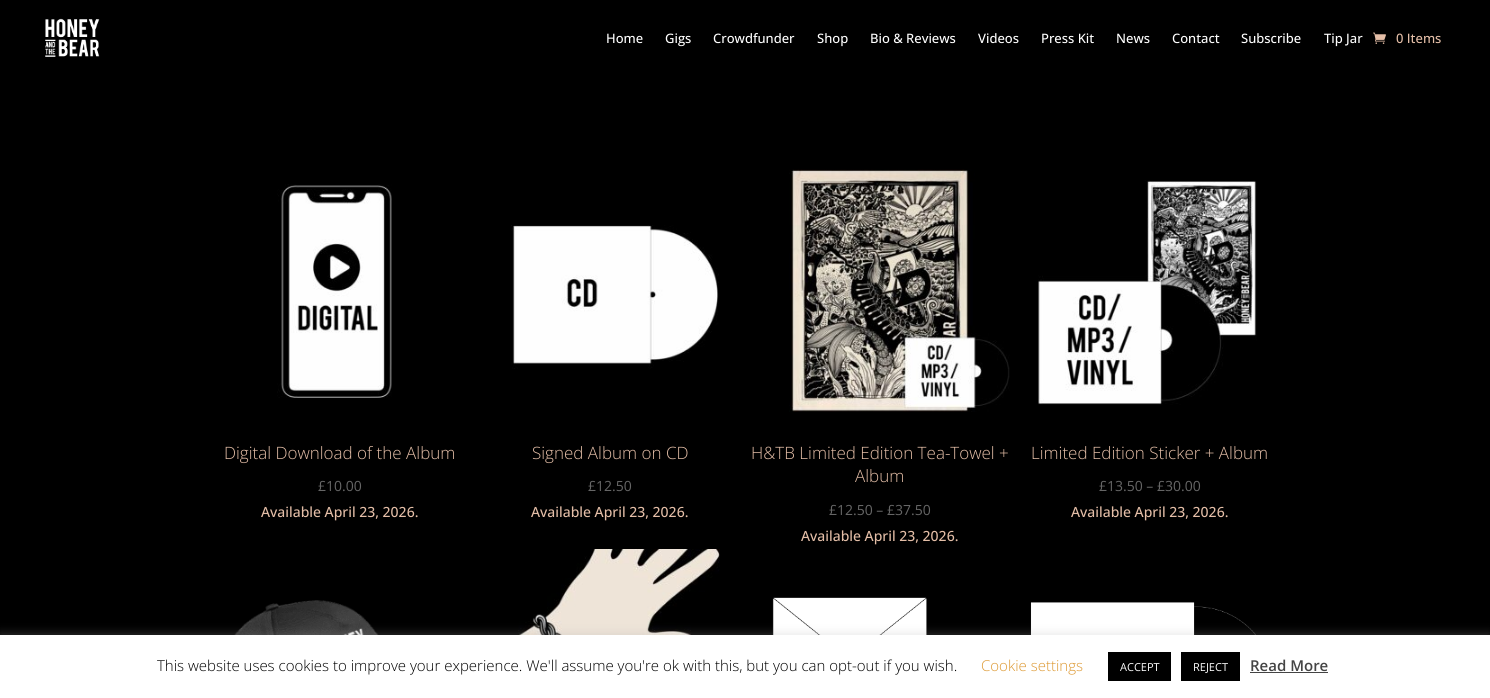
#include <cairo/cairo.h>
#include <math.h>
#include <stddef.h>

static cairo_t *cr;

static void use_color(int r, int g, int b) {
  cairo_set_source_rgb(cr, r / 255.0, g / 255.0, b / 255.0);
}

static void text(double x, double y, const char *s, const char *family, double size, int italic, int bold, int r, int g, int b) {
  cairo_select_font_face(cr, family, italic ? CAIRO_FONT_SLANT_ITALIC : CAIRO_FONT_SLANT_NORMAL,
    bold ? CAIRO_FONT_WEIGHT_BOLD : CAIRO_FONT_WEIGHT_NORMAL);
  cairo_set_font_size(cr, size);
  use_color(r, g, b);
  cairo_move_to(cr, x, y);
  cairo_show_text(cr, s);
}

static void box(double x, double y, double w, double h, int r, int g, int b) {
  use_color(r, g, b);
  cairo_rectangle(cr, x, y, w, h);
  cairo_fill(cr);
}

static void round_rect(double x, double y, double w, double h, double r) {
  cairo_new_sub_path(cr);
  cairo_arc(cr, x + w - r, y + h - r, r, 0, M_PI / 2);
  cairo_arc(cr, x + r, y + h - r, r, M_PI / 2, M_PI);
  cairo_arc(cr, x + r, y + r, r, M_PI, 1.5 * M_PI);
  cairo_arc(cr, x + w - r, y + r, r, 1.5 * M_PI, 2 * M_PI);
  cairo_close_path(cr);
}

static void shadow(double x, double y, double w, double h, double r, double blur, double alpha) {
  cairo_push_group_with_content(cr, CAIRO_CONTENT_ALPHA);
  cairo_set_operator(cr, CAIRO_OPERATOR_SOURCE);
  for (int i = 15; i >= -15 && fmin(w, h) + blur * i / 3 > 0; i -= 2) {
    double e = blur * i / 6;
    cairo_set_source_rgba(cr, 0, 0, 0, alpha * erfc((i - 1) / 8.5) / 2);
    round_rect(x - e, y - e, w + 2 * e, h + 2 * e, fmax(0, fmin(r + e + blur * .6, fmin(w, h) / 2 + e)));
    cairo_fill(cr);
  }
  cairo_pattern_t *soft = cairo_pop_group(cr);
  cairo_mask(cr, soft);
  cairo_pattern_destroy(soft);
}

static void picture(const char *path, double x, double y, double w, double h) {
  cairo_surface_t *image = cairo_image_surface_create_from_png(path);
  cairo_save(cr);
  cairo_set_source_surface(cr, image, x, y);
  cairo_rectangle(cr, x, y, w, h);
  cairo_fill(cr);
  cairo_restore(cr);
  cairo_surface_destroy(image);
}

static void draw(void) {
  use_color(0, 0, 0);
  cairo_paint(cr);
  picture("img_01.png", 45, 18, 55, 39);
  picture("img_02.png", 1373, 32, 13, 12);
  picture("img_03.png", 277, 184, 115, 214);
  picture("img_04.png", 511, 225, 208, 144);
  picture("img_05.png", 789, 169, 221, 243);
  picture("img_06.png", 1038, 180, 219, 225);
  picture("img_07.png", 234, 600, 145, 35);
  picture("img_08.png", 475, 549, 245, 86);
  picture("img_09.png", 772, 597, 156, 38);
  picture("img_10.png", 1030, 602, 226, 33);
  use_color(172, 171, 171);
  shadow(0, 634, 1490, 63, 0, 5, 0.3);
  box(0, 635, 1490, 63, 255, 255, 255);
  box(1108, 652, 63, 29, 0, 0, 0);
  box(1181, 652, 59, 29, 0, 0, 0);
  box(1250, 672, 78, 1, 68, 68, 68);
  text(606, 43, "Home", "Open Sans Medium", 13, 0, 0, 255, 255, 255);
  text(665, 43, "Gigs", "Open Sans Medium", 13, 0, 0, 255, 255, 255);
  text(713, 43, "Crowdfunder", "Open Sans Medium", 13, 0, 0, 255, 255, 255);
  text(817, 43, "Shop", "Open Sans Medium", 13, 0, 0, 255, 255, 255);
  text(870, 43, "Bio & Reviews", "Open Sans Medium", 13, 0, 0, 255, 255, 255);
  text(978, 43, "Videos", "Open Sans Medium", 13, 0, 0, 255, 255, 255);
  text(1041, 43, "Press Kit", "Open Sans Medium", 13, 0, 0, 255, 255, 255);
  text(1116, 43, "News", "Open Sans Medium", 13, 0, 0, 255, 255, 255);
  text(1172, 43, "Contact", "Open Sans Medium", 13, 0, 0, 255, 255, 255);
  text(1241, 43, "Subscribe", "Open Sans Medium", 13, 0, 0, 255, 255, 255);
  text(1324, 43, "Tip Jar", "Open Sans Medium", 13, 0, 0, 255, 255, 255);
  text(1396, 43, "0 Items", "Open Sans Medium", 13, 0, 0, 228, 190, 167);
  text(224, 459, "Digital Download of the Album", "Open Sans Light", 17, 0, 0, 228, 190, 167);
  text(318, 491, "£10.00", "Open Sans", 14, 0, 0, 102, 102, 102);
  text(261, 517, "Available April 23, 2026.", "Open Sans Medium", 14, 0, 0, 228, 190, 167);
  text(532, 459, "Signed Album on CD", "Open Sans Light", 17, 0, 0, 228, 190, 167);
  text(588, 491, "£12.50", "Open Sans", 14, 0, 0, 102, 102, 102);
  text(531, 517, "Available April 23, 2026.", "Open Sans Medium", 14, 0, 0, 228, 190, 167);
  text(751, 459, "H&TB Limited Edition Tea-Towel +", "Open Sans Light", 17, 0, 0, 228, 190, 167);
  text(855, 482, "Album", "Open Sans Light", 17, 0, 0, 228, 190, 167);
  text(829, 515, "£12.50 – £37.50", "Open Sans", 14, 0, 0, 102, 102, 102);
  text(801, 541, "Available April 23, 2026.", "Open Sans Medium", 14, 0, 0, 228, 190, 167);
  text(1031, 459, "Limited Edition Sticker + Album", "Open Sans Light", 17, 0, 0, 228, 190, 167);
  text(1099, 491, "£13.50 – £30.00", "Open Sans", 14, 0, 0, 102, 102, 102);
  text(1071, 517, "Available April 23, 2026.", "Open Sans Medium", 14, 0, 0, 228, 190, 167);
  text(157, 671, "This website uses cookies to improve your experience. We'll assume you're ok with this, but you can opt-out if you wish.", "Open Sans Light", 15, 0, 0, 0, 0, 0);
  text(981, 671, "Cookie settings", "Open Sans Light", 15, 0, 0, 221, 153, 51);
  text(1120, 671, "ACCEPT", "Open Sans", 11, 0, 0, 255, 255, 255);
  text(1193, 671, "REJECT", "Open Sans", 11, 0, 0, 255, 255, 255);
  text(1250, 671, "Read More", "Open Sans SemiBold", 15, 0, 0, 68, 68, 68);
}

int main(void) {
  cairo_surface_t *surface = cairo_image_surface_create(CAIRO_FORMAT_RGB24, 1490, 698);
  cr = cairo_create(surface);
  cairo_font_options_t *options = cairo_font_options_create();
  cairo_font_options_set_hint_metrics(options, CAIRO_HINT_METRICS_OFF);
  cairo_font_options_set_hint_style(options, CAIRO_HINT_STYLE_NONE);
  cairo_set_font_options(cr, options);
  cairo_set_miter_limit(cr, 4);
  draw();
  cairo_surface_write_to_png(surface, "out.png");
  cairo_font_options_destroy(options);
  cairo_destroy(cr);
  cairo_surface_destroy(surface);
  return 0;
}
